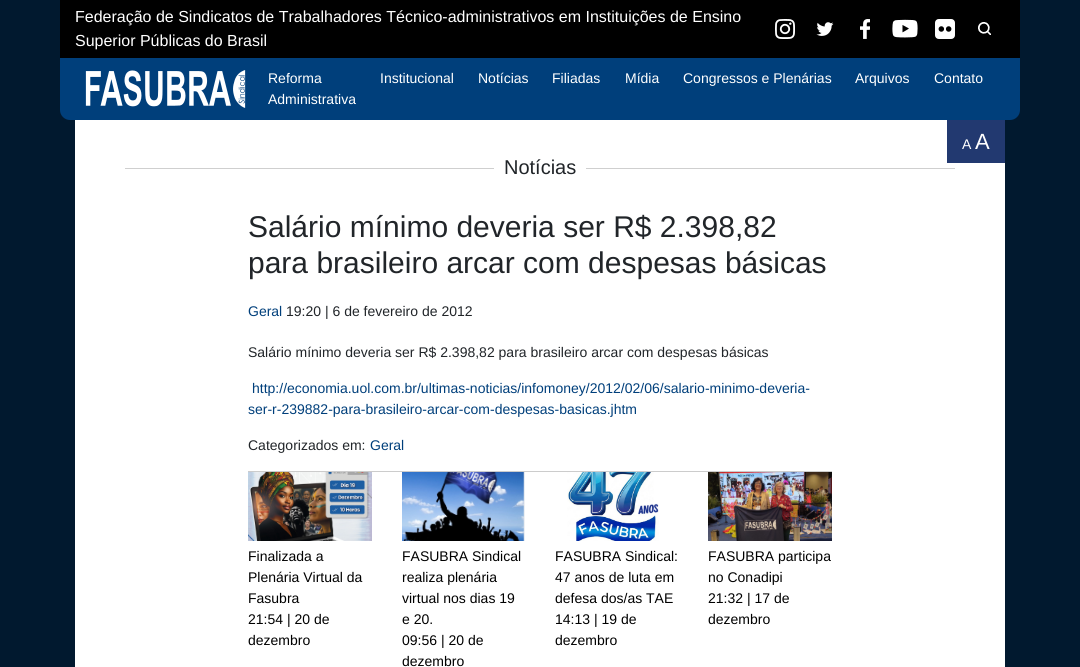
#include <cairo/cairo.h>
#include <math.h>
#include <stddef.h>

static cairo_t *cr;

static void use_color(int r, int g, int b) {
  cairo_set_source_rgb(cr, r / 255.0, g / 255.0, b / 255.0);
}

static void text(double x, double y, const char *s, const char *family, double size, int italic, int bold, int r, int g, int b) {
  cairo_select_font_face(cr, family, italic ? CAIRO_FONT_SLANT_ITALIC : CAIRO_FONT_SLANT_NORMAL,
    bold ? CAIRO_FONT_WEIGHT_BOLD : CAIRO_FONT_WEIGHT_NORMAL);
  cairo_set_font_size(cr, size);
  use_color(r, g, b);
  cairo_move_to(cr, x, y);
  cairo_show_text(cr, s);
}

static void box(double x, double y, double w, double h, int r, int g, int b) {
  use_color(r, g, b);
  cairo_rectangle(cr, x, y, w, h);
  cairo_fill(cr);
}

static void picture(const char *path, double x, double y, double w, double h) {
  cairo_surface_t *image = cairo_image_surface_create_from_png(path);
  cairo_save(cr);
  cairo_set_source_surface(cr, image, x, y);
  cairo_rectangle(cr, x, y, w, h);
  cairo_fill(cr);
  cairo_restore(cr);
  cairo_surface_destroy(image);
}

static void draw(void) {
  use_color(1, 25, 47);
  cairo_paint(cr);
  box(60, 0, 960, 58, 0, 0, 0);
  picture("img_01.png", 775, 19, 20, 20);
  picture("img_02.png", 816, 22, 18, 14);
  picture("img_03.png", 860, 19, 10, 20);
  picture("img_04.png", 892, 19, 26, 19);
  picture("img_05.png", 935, 19, 20, 20);
  picture("img_06.png", 978, 22, 13, 13);
  use_color(0, 63, 123);
  cairo_new_path(cr);
  cairo_move_to(cr, 60, 58);
  cairo_line_to(cr, 1020, 58);
  cairo_line_to(cr, 1020, 110);
  cairo_curve_to(cr, 1020, 115.5, 1015.5, 120, 1010, 120);
  cairo_line_to(cr, 70, 120);
  cairo_curve_to(cr, 64.5, 120, 60, 115.5, 60, 110);
  cairo_close_path(cr);
  cairo_fill(cr);
  picture("img_07.png", 85, 70, 161, 38);
  box(75, 120, 930, 547, 255, 255, 255);
  box(947, 120, 58, 43, 34, 57, 112);
  box(125, 168, 369, 1, 207, 207, 207);
  box(586, 168, 369, 1, 207, 207, 207);
  box(248, 471, 584, 1, 204, 204, 204);
  picture("img_08.png", 248, 472, 124, 69);
  picture("img_09.png", 402, 472, 123, 69);
  picture("img_10.png", 567, 472, 92, 69);
  picture("img_11.png", 708, 472, 124, 69);
  text(75, 22, "Federação de Sindicatos de Trabalhadores Técnico-administrativos em Instituições de Ensino", "Liberation Sans", 16, 0, 0, 255, 255, 255);
  text(75, 46, "Superior Públicas do Brasil", "Liberation Sans", 16, 0, 0, 255, 255, 255);
  text(268, 83, "Reforma", "Liberation Sans", 14, 0, 0, 255, 255, 255);
  text(268, 104, "Administrativa", "Liberation Sans", 14, 0, 0, 255, 255, 255);
  text(380, 83, "Institucional", "Liberation Sans", 14, 0, 0, 255, 255, 255);
  text(478, 83, "Notícias", "Liberation Sans", 14, 0, 0, 255, 255, 255);
  text(552, 83, "Filiadas", "Liberation Sans", 14, 0, 0, 255, 255, 255);
  text(625, 83, "Mídia", "Liberation Sans", 14, 0, 0, 255, 255, 255);
  text(683, 83, "Congressos e Plenárias", "Liberation Sans", 14, 0, 0, 255, 255, 255);
  text(855, 83, "Arquivos", "Liberation Sans", 14, 0, 0, 255, 255, 255);
  text(934, 83, "Contato", "Liberation Sans", 14, 0, 0, 255, 255, 255);
  text(962, 149, "A", "Liberation Sans", 14, 0, 0, 255, 255, 255);
  text(975, 149, "A", "Liberation Sans", 22, 0, 0, 255, 255, 255);
  text(504, 174, "Notícias", "Liberation Sans", 20, 0, 0, 33, 37, 41);
  text(248, 237, "Salário mínimo deveria ser R$ 2.398,82", "Liberation Sans", 30, 0, 0, 33, 37, 41);
  text(248, 273, "para brasileiro arcar com despesas básicas", "Liberation Sans", 30, 0, 0, 33, 37, 41);
  text(248, 316, "Geral", "Liberation Sans", 14, 0, 0, 0, 63, 123);
  text(286, 316, "19:20 | 6 de fevereiro de 2012", "Liberation Sans", 14, 0, 0, 33, 37, 41);
  text(248, 357, "Salário mínimo deveria ser R$ 2.398,82 para brasileiro arcar com despesas básicas", "Liberation Sans", 14, 0, 0, 33, 37, 41);
  text(252, 393, "http://economia.uol.com.br/ultimas-noticias/infomoney/2012/02/06/salario-minimo-deveria-", "Liberation Sans", 14, 0, 0, 0, 63, 123);
  text(248, 414, "ser-r-239882-para-brasileiro-arcar-com-despesas-basicas.jhtm", "Liberation Sans", 14, 0, 0, 0, 63, 123);
  text(248, 450, "Categorizados em:", "Liberation Sans", 14, 0, 0, 33, 37, 41);
  text(370, 450, "Geral", "Liberation Sans", 14, 0, 0, 0, 63, 123);
  text(248, 561, "Finalizada a", "Liberation Sans", 14, 0, 0, 0, 0, 0);
  text(248, 582, "Plenária Virtual da", "Liberation Sans", 14, 0, 0, 0, 0, 0);
  text(248, 603, "Fasubra", "Liberation Sans", 14, 0, 0, 0, 0, 0);
  text(248, 624, "21:54 | 20 de", "Liberation Sans", 14, 0, 0, 0, 0, 0);
  text(248, 645, "dezembro", "Liberation Sans", 14, 0, 0, 0, 0, 0);
  text(402, 561, "FASUBRA Sindical", "Liberation Sans", 14, 0, 0, 0, 0, 0);
  text(402, 582, "realiza plenária", "Liberation Sans", 14, 0, 0, 0, 0, 0);
  text(402, 603, "virtual nos dias 19", "Liberation Sans", 14, 0, 0, 0, 0, 0);
  text(402, 624, "e 20.", "Liberation Sans", 14, 0, 0, 0, 0, 0);
  text(402, 645, "09:56 | 20 de", "Liberation Sans", 14, 0, 0, 0, 0, 0);
  text(402, 666, "dezembro", "Liberation Sans", 14, 0, 0, 0, 0, 0);
  text(555, 561, "FASUBRA Sindical:", "Liberation Sans", 14, 0, 0, 0, 0, 0);
  text(555, 582, "47 anos de luta em", "Liberation Sans", 14, 0, 0, 0, 0, 0);
  text(555, 603, "defesa dos/as TAE", "Liberation Sans", 14, 0, 0, 0, 0, 0);
  text(555, 624, "14:13 | 19 de", "Liberation Sans", 14, 0, 0, 0, 0, 0);
  text(555, 645, "dezembro", "Liberation Sans", 14, 0, 0, 0, 0, 0);
  text(708, 561, "FASUBRA participa", "Liberation Sans", 14, 0, 0, 0, 0, 0);
  text(708, 582, "no Conadipi", "Liberation Sans", 14, 0, 0, 0, 0, 0);
  text(708, 603, "21:32 | 17 de", "Liberation Sans", 14, 0, 0, 0, 0, 0);
  text(708, 624, "dezembro", "Liberation Sans", 14, 0, 0, 0, 0, 0);
}

int main(void) {
  cairo_surface_t *surface = cairo_image_surface_create(CAIRO_FORMAT_RGB24, 1080, 667);
  cr = cairo_create(surface);
  cairo_font_options_t *options = cairo_font_options_create();
  cairo_font_options_set_hint_metrics(options, CAIRO_HINT_METRICS_OFF);
  cairo_font_options_set_hint_style(options, CAIRO_HINT_STYLE_NONE);
  cairo_set_font_options(cr, options);
  cairo_set_miter_limit(cr, 4);
  draw();
  cairo_surface_write_to_png(surface, "out.png");
  cairo_font_options_destroy(options);
  cairo_destroy(cr);
  cairo_surface_destroy(surface);
  return 0;
}
